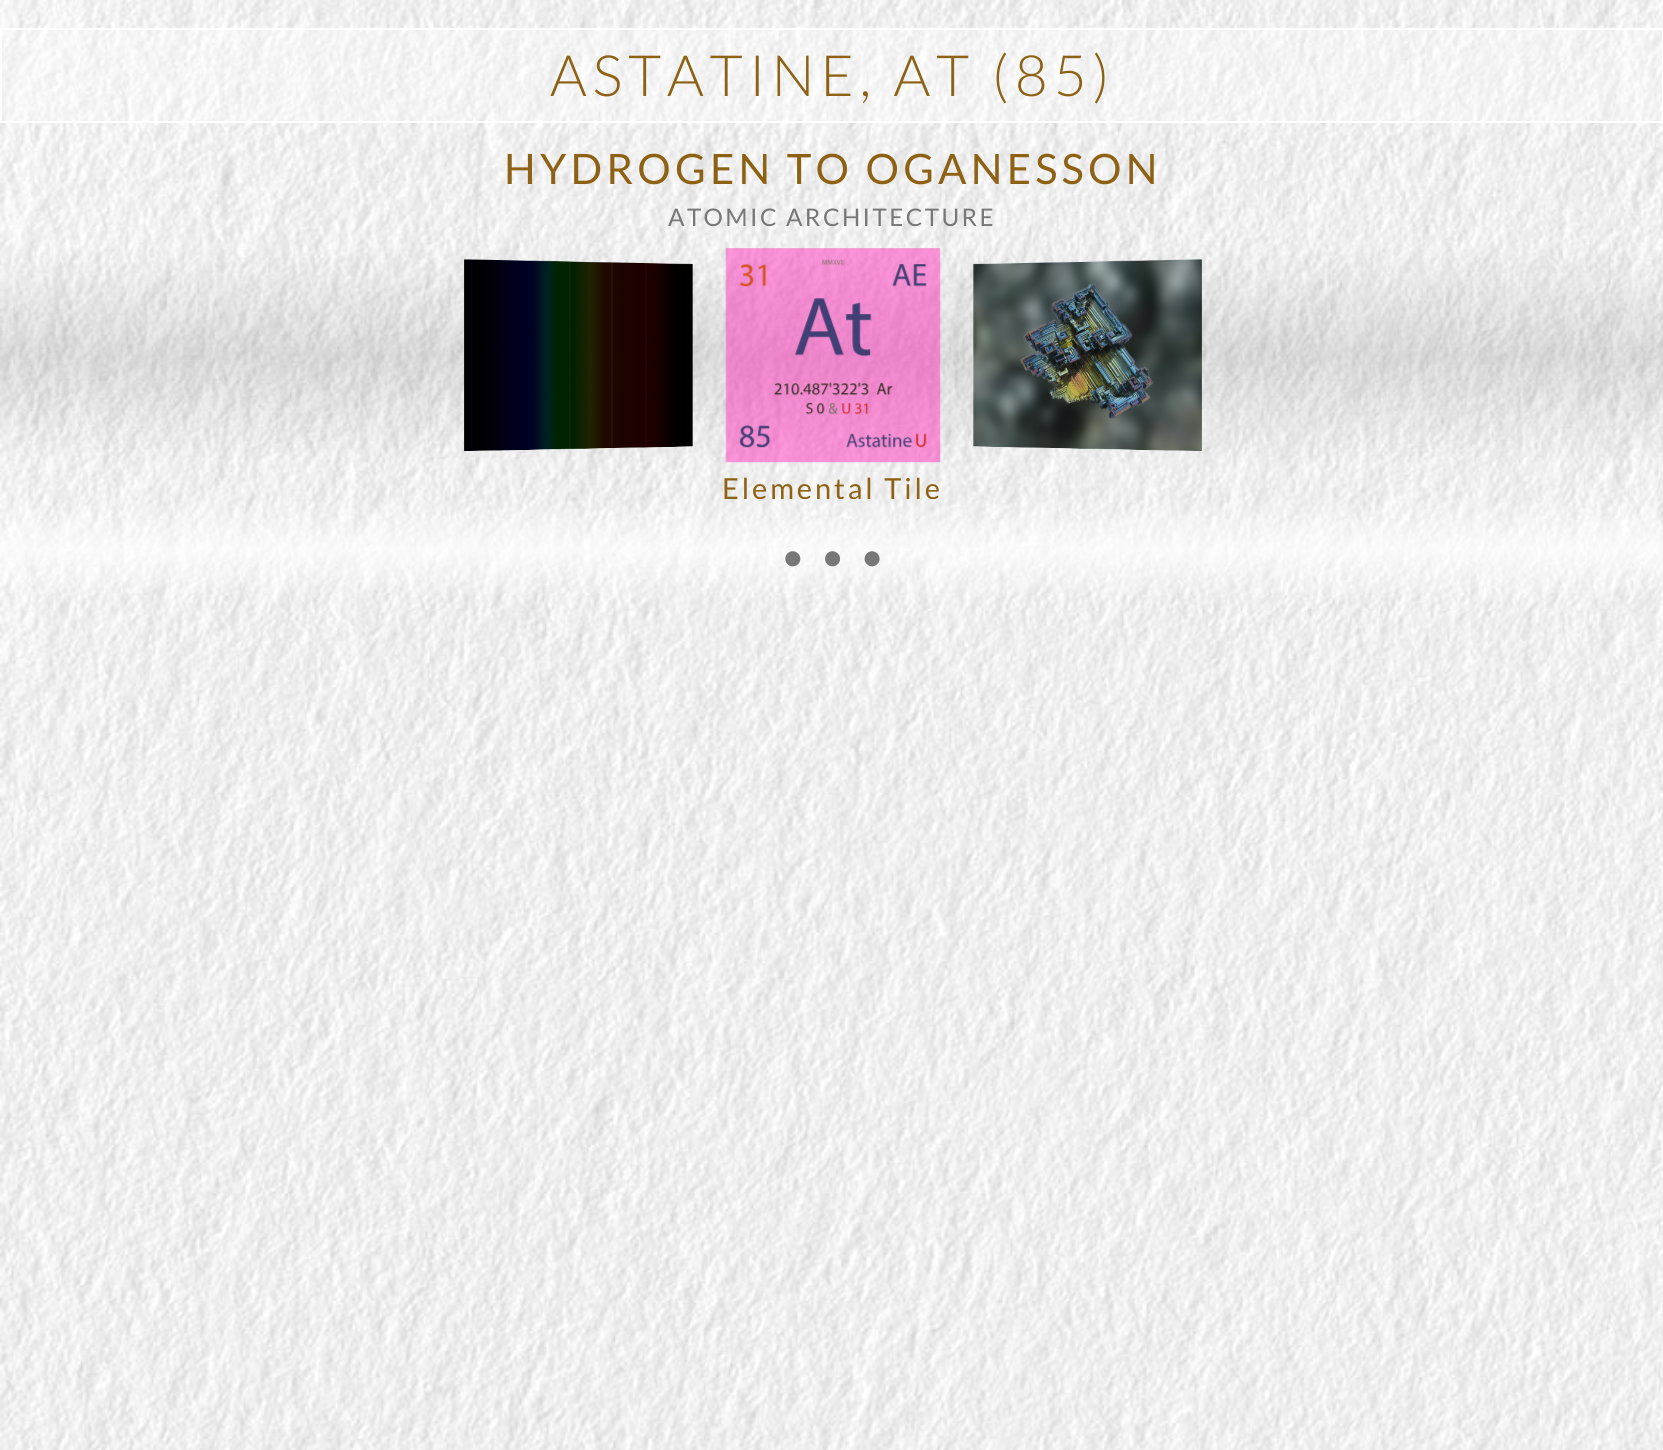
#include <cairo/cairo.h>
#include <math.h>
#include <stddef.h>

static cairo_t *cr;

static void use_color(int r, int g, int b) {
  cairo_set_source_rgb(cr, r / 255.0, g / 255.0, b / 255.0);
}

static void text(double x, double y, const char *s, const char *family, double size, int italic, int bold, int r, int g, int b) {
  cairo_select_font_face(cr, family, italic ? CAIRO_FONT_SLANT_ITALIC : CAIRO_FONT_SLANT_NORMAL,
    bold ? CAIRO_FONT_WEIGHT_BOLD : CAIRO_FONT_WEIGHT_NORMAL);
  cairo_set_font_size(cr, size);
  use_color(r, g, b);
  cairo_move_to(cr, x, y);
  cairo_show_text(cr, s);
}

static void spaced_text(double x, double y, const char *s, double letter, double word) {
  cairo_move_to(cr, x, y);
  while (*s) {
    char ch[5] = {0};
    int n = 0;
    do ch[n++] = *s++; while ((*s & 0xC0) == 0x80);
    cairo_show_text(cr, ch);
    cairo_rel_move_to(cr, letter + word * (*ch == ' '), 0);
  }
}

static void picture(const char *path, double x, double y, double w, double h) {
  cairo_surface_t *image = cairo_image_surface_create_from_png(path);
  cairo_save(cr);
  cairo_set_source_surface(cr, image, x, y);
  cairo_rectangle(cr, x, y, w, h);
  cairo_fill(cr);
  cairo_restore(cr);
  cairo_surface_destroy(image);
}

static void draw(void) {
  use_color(255, 255, 255);
  cairo_paint(cr);
  picture("img_01.png", 0, 0, 1663, 1450);
  cairo_set_source_rgba(cr, 1, 1, 1, 0.3);
  cairo_rectangle(cr, 1, 29, 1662, 93);
  cairo_fill_preserve(cr);
  use_color(255, 255, 255);
  cairo_stroke(cr);
  picture("img_02.png", 464, 259, 229, 192);
  picture("img_03.png", 725, 248, 216, 215);
  picture("img_04.png", 973, 259, 229, 192);
  cairo_select_font_face(cr, "Lato Light", CAIRO_FONT_SLANT_NORMAL, CAIRO_FONT_WEIGHT_NORMAL);
  cairo_set_font_size(cr, 57);
  use_color(142, 98, 21);
  spaced_text(550, 96, "ASTATINE, AT (85)", 5.75, 0);
  cairo_select_font_face(cr, "Lato", CAIRO_FONT_SLANT_NORMAL, CAIRO_FONT_WEIGHT_NORMAL);
  cairo_set_font_size(cr, 41.9);
  spaced_text(504, 184, "HYDROGEN TO OGANESSON", 4.2, 0);
  cairo_set_font_size(cr, 24.25);
  use_color(119, 119, 119);
  spaced_text(668, 226, "ATOMIC ARCHITECTURE", 2.4, 0);
  cairo_save(cr);
  cairo_rectangle(cr, 0, 467, 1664, 32);
  cairo_clip(cr);
  cairo_set_font_size(cr, 29);
  use_color(142, 98, 21);
  spaced_text(722, 499, "Elemental Tile", 2.9, 0);
  cairo_restore(cr);
  text(773, 603, "···", "Lato Light", 149, 0, 0, 119, 119, 119);
}

int main(void) {
  cairo_surface_t *surface = cairo_image_surface_create(CAIRO_FORMAT_RGB24, 1663, 1450);
  cr = cairo_create(surface);
  cairo_font_options_t *options = cairo_font_options_create();
  cairo_font_options_set_hint_metrics(options, CAIRO_HINT_METRICS_OFF);
  cairo_font_options_set_hint_style(options, CAIRO_HINT_STYLE_NONE);
  cairo_set_font_options(cr, options);
  cairo_set_miter_limit(cr, 4);
  draw();
  cairo_surface_write_to_png(surface, "out.png");
  cairo_font_options_destroy(options);
  cairo_destroy(cr);
  cairo_surface_destroy(surface);
  return 0;
}
